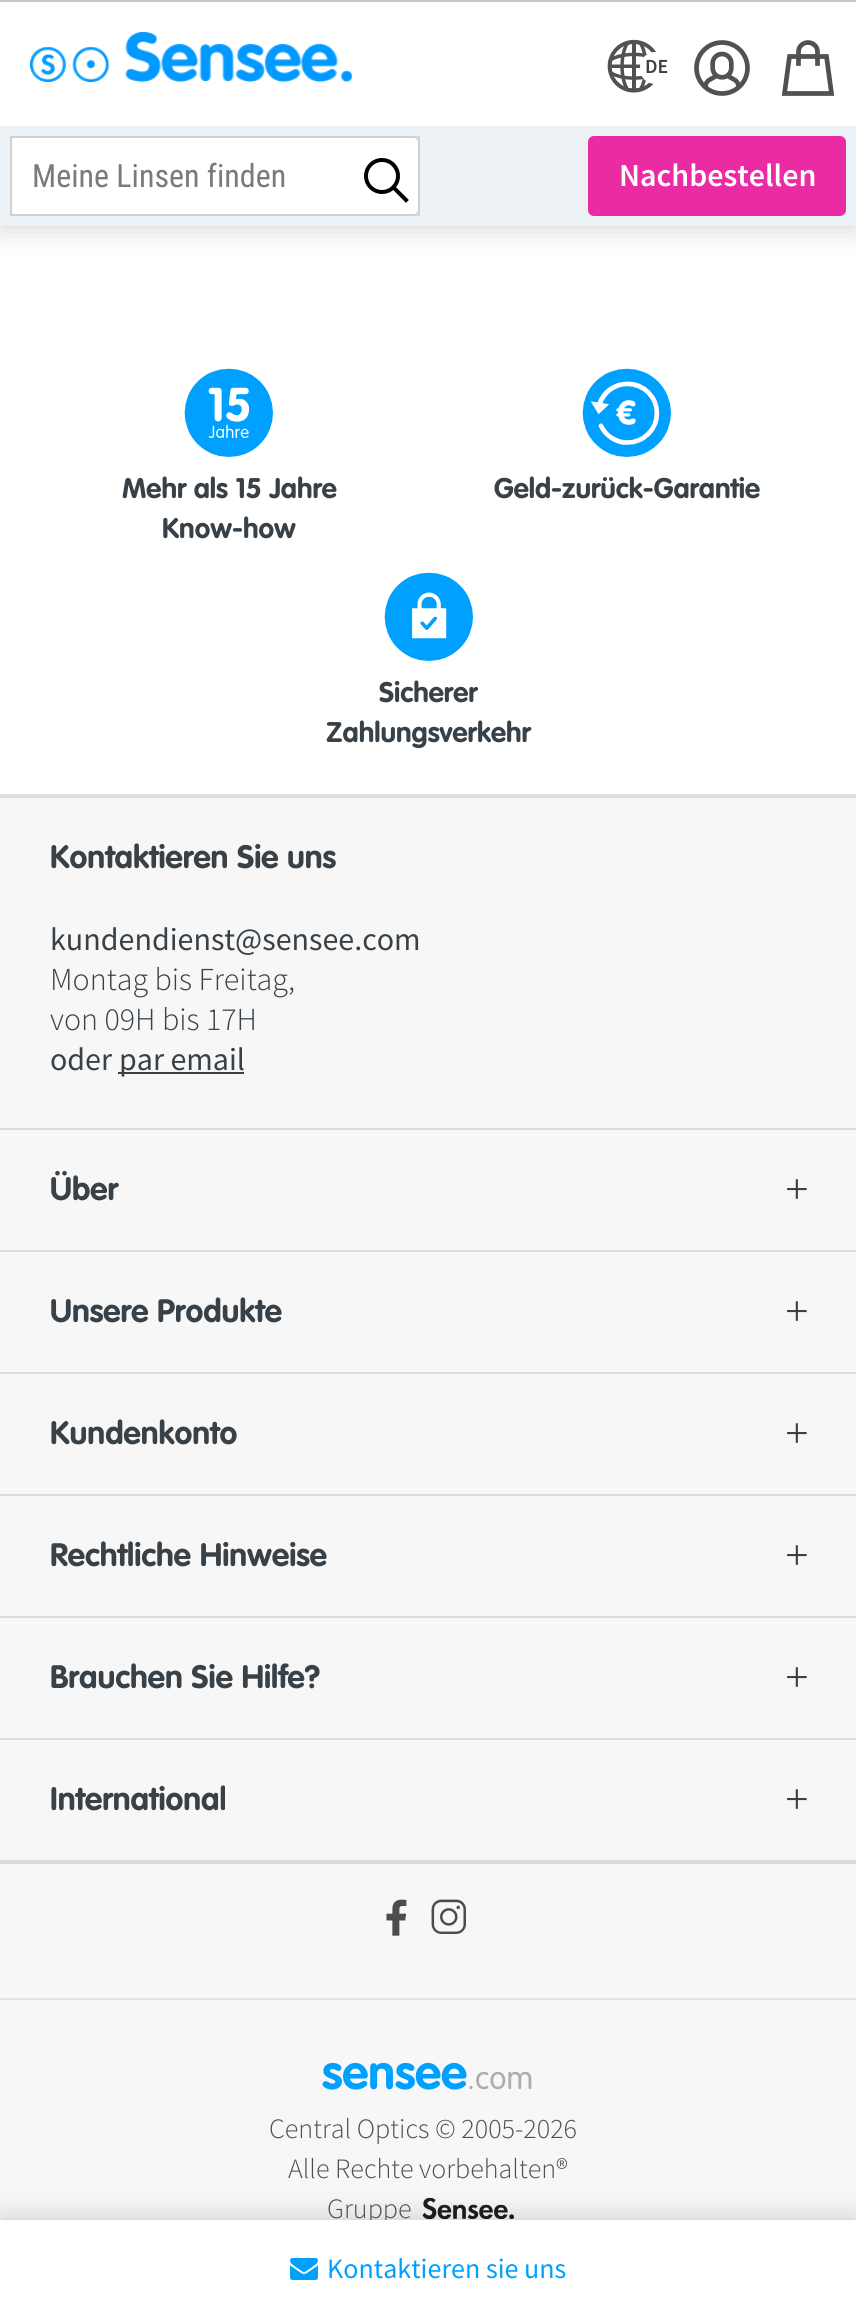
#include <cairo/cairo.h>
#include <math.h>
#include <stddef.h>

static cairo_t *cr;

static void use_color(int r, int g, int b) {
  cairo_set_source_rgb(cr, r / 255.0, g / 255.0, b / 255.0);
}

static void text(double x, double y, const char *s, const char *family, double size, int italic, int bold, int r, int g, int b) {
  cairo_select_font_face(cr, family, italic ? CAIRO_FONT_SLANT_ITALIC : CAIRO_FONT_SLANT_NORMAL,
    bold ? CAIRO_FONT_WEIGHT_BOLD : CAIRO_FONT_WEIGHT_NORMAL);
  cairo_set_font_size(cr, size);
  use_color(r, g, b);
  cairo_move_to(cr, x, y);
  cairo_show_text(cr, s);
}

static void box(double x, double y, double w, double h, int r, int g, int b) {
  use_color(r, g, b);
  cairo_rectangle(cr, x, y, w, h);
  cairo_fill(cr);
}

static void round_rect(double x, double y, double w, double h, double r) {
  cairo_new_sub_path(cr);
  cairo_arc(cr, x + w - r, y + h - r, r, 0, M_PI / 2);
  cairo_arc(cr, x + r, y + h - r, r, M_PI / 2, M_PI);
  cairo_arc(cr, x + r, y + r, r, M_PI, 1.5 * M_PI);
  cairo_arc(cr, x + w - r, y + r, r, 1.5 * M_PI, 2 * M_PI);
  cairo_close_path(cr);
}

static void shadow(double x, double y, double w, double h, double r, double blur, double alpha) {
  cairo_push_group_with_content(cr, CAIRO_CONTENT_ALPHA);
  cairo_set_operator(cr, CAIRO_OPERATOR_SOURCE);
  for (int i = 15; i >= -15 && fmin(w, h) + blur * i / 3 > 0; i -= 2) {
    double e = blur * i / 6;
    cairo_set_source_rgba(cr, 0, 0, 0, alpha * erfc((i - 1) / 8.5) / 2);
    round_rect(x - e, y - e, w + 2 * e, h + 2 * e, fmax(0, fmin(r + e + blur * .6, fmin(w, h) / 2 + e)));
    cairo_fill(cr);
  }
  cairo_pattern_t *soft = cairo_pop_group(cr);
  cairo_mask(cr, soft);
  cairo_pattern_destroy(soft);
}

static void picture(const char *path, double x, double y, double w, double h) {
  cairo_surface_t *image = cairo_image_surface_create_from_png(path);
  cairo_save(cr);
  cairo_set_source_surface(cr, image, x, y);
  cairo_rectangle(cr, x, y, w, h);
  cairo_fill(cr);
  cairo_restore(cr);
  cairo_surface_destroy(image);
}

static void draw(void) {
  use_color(255, 255, 255);
  cairo_paint(cr);
  box(0, 0, 856, 2, 220, 220, 220);
  use_color(0, 0, 0);
  shadow(0, 2, 856, 224, 0, 15, 0.2);
  box(0, 126, 856, 100, 236, 242, 246);
  box(0, 2, 856, 124, 255, 255, 255);
  picture("img_01.png", 30, 32, 322, 50);
  picture("img_02.png", 607, 39, 50, 54);
  round_rect(640, 52, 30, 32, 15);
  cairo_fill(cr);
  picture("img_03.png", 694, 40, 56, 56);
  cairo_new_path(cr);
  cairo_move_to(cr, 831.5, 93.5);
  cairo_line_to(cr, 784.5, 93.5);
  cairo_line_to(cr, 789.5, 56.5);
  cairo_line_to(cr, 826.5, 56.5);
  cairo_close_path(cr);
  cairo_move_to(cr, 798.5, 63.5);
  cairo_line_to(cr, 798.5, 51.5);
  cairo_curve_to(cr, 798.5, 46.5, 803, 42.5, 808, 42.5);
  cairo_curve_to(cr, 813, 42.5, 817.5, 46.5, 817.5, 51.5);
  cairo_line_to(cr, 817.5, 63.5);
  use_color(81, 81, 81);
  cairo_set_line_width(cr, 4.7);
  cairo_set_line_cap(cr, CAIRO_LINE_CAP_SQUARE);
  cairo_stroke(cr);
  box(12, 138, 342, 76, 255, 255, 255);
  cairo_rectangle(cr, 11, 137, 408, 78);
  use_color(208, 208, 208);
  cairo_set_line_width(cr, 2);
  cairo_set_line_cap(cr, CAIRO_LINE_CAP_BUTT);
  cairo_stroke(cr);
  use_color(255, 255, 255);
  cairo_new_path(cr);
  cairo_move_to(cr, 354, 136);
  cairo_line_to(cr, 414, 136);
  cairo_curve_to(cr, 417.5, 136, 420, 138.5, 420, 142);
  cairo_line_to(cr, 420, 210);
  cairo_curve_to(cr, 420, 213.5, 417.5, 216, 414, 216);
  cairo_line_to(cr, 354, 216);
  cairo_close_path(cr);
  cairo_fill(cr);
  use_color(208, 208, 208);
  cairo_set_fill_rule(cr, CAIRO_FILL_RULE_EVEN_ODD);
  cairo_new_path(cr);
  cairo_move_to(cr, 354, 136);
  cairo_line_to(cr, 414, 136);
  cairo_curve_to(cr, 417, 136, 420, 139, 420, 142);
  cairo_line_to(cr, 420, 210);
  cairo_curve_to(cr, 420, 213, 417, 216, 414, 216);
  cairo_line_to(cr, 354, 216);
  cairo_close_path(cr);
  cairo_move_to(cr, 354, 138);
  cairo_line_to(cr, 414, 138);
  cairo_curve_to(cr, 416, 138, 418, 140, 418, 142);
  cairo_line_to(cr, 418, 210);
  cairo_curve_to(cr, 418, 212, 416, 214, 414, 214);
  cairo_line_to(cr, 354, 214);
  cairo_close_path(cr);
  cairo_fill(cr);
  cairo_new_path(cr);
  cairo_move_to(cr, 406, 200);
  cairo_line_to(cr, 393.5, 187.5);
  use_color(0, 0, 0);
  cairo_set_line_width(cr, 4);
  cairo_set_line_cap(cr, CAIRO_LINE_CAP_SQUARE);
  cairo_stroke(cr);
  cairo_arc(cr, 382, 176, 16, 0, 2 * M_PI);
  cairo_set_line_cap(cr, CAIRO_LINE_CAP_BUTT);
  cairo_stroke(cr);
  use_color(235, 43, 164);
  round_rect(588, 136, 258, 80, 6);
  cairo_fill(cr);
  picture("img_04.png", 184, 368, 89, 89);
  picture("img_05.png", 582, 368, 89, 89);
  picture("img_06.png", 384, 572, 89, 89);
  box(0, 794, 856, 4, 221, 222, 223);
  box(0, 798, 856, 1062, 247, 247, 247);
  box(0, 1128, 856, 2, 219, 219, 219);
  box(118, 1072, 126, 2, 56, 65, 71);
  box(0, 1250, 856, 2, 219, 219, 219);
  box(0, 1372, 856, 2, 219, 219, 219);
  box(0, 1494, 856, 2, 219, 219, 219);
  box(0, 1616, 856, 2, 219, 219, 219);
  box(0, 1738, 856, 2, 219, 219, 219);
  box(0, 1864, 856, 356, 247, 247, 247);
  box(0, 1860, 856, 4, 219, 219, 219);
  picture("img_07.png", 386, 1899, 21, 37);
  picture("img_08.png", 431, 1899, 35, 35);
  box(0, 1998, 856, 2, 226, 226, 226);
  picture("img_09.png", 422, 2197, 92, 23);
  use_color(0, 0, 0);
  shadow(0, 2220, 856, 96, 0, 15, 0.2);
  text(645, 73, "DE", "Source Sans Pro SemiBold", 20, 0, 0, 56, 65, 71);
  text(32, 187, "Meine Linsen finden", "Roboto Condensed", 32, 0, 0, 122, 122, 122);
  text(619, 186, "Nachbestellen", "Source Sans Pro SemiBold", 32, 0, 0, 255, 255, 255);
  text(122, 498, "Mehr als 15 Jahre", "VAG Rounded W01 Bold", 28, 0, 1, 56, 65, 71);
  text(162, 538, "Know-how", "VAG Rounded W01 Bold", 28, 0, 1, 56, 65, 71);
  text(494, 498, "Geld-zurück-Garantie", "VAG Rounded W01 Bold", 28, 0, 1, 56, 65, 71);
  text(379, 702, "Sicherer", "VAG Rounded W01 Bold", 28, 0, 1, 56, 65, 71);
  text(326, 742, "Zahlungsverkehr", "VAG Rounded W01 Bold", 28, 0, 1, 56, 65, 71);
  text(50, 868, "Kontaktieren Sie uns", "VAG Rounded W01 Bold", 32, 0, 1, 56, 65, 71);
  text(50, 950, "kundendienst@sensee.com", "Source Sans Pro", 32, 0, 0, 56, 65, 71);
  text(50, 990, "Montag bis Freitag,", "Source Sans Pro Light", 32, 0, 0, 56, 65, 71);
  text(50, 1030, "von 09H bis 17H", "Source Sans Pro Light", 32, 0, 0, 56, 65, 71);
  text(50, 1070, "oder", "Source Sans Pro", 32, 0, 0, 56, 65, 71);
  text(119, 1070, "par email", "Source Sans Pro", 32, 0, 0, 56, 65, 71);
  text(50, 1200, "Über", "VAG Rounded W01 Bold", 32, 0, 1, 56, 65, 71);
  text(785, 1203, "+", "Liberation Serif", 42, 0, 0, 56, 65, 71);
  text(50, 1322, "Unsere Produkte", "VAG Rounded W01 Bold", 32, 0, 1, 56, 65, 71);
  text(785, 1325, "+", "Liberation Serif", 42, 0, 0, 56, 65, 71);
  text(50, 1444, "Kundenkonto", "VAG Rounded W01 Bold", 32, 0, 1, 56, 65, 71);
  text(785, 1447, "+", "Liberation Serif", 42, 0, 0, 56, 65, 71);
  text(50, 1566, "Rechtliche Hinweise", "VAG Rounded W01 Bold", 32, 0, 1, 56, 65, 71);
  text(785, 1569, "+", "Liberation Serif", 42, 0, 0, 56, 65, 71);
  text(50, 1688, "Brauchen Sie Hilfe?", "VAG Rounded W01 Bold", 32, 0, 1, 56, 65, 71);
  text(785, 1691, "+", "Liberation Serif", 42, 0, 0, 56, 65, 71);
  text(50, 1810, "International", "VAG Rounded W01 Bold", 32, 0, 1, 56, 65, 71);
  text(785, 1813, "+", "Liberation Serif", 42, 0, 0, 56, 65, 71);
  text(322, 2089, "sensee", "VAG Rounded W01 Bold", 48, 0, 1, 0, 160, 255);
  text(467, 2089, ".com", "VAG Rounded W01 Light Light", 32, 0, 0, 173, 173, 173);
  text(269, 2138, "Central Optics © 2005-2026", "Source Sans Pro Light", 28, 0, 0, 80, 78, 78);
  text(288, 2178, "Alle Rechte vorbehalten®", "Source Sans Pro Light", 28, 0, 0, 80, 78, 78);
  text(327, 2218, "Gruppe", "Source Sans Pro Light", 28, 0, 0, 80, 78, 78);
  box(0, 2220, 856, 96, 255, 255, 255);
  picture("img_10.png", 290, 2258, 28, 22);
  text(327, 2278, "Kontaktieren sie uns", "Source Sans Pro", 28, 0, 0, 0, 160, 255);
}

int main(void) {
  cairo_surface_t *surface = cairo_image_surface_create(CAIRO_FORMAT_RGB24, 856, 2316);
  cr = cairo_create(surface);
  cairo_font_options_t *options = cairo_font_options_create();
  cairo_font_options_set_hint_metrics(options, CAIRO_HINT_METRICS_OFF);
  cairo_font_options_set_hint_style(options, CAIRO_HINT_STYLE_NONE);
  cairo_set_font_options(cr, options);
  cairo_set_miter_limit(cr, 4);
  draw();
  cairo_surface_write_to_png(surface, "out.png");
  cairo_font_options_destroy(options);
  cairo_destroy(cr);
  cairo_surface_destroy(surface);
  return 0;
}
